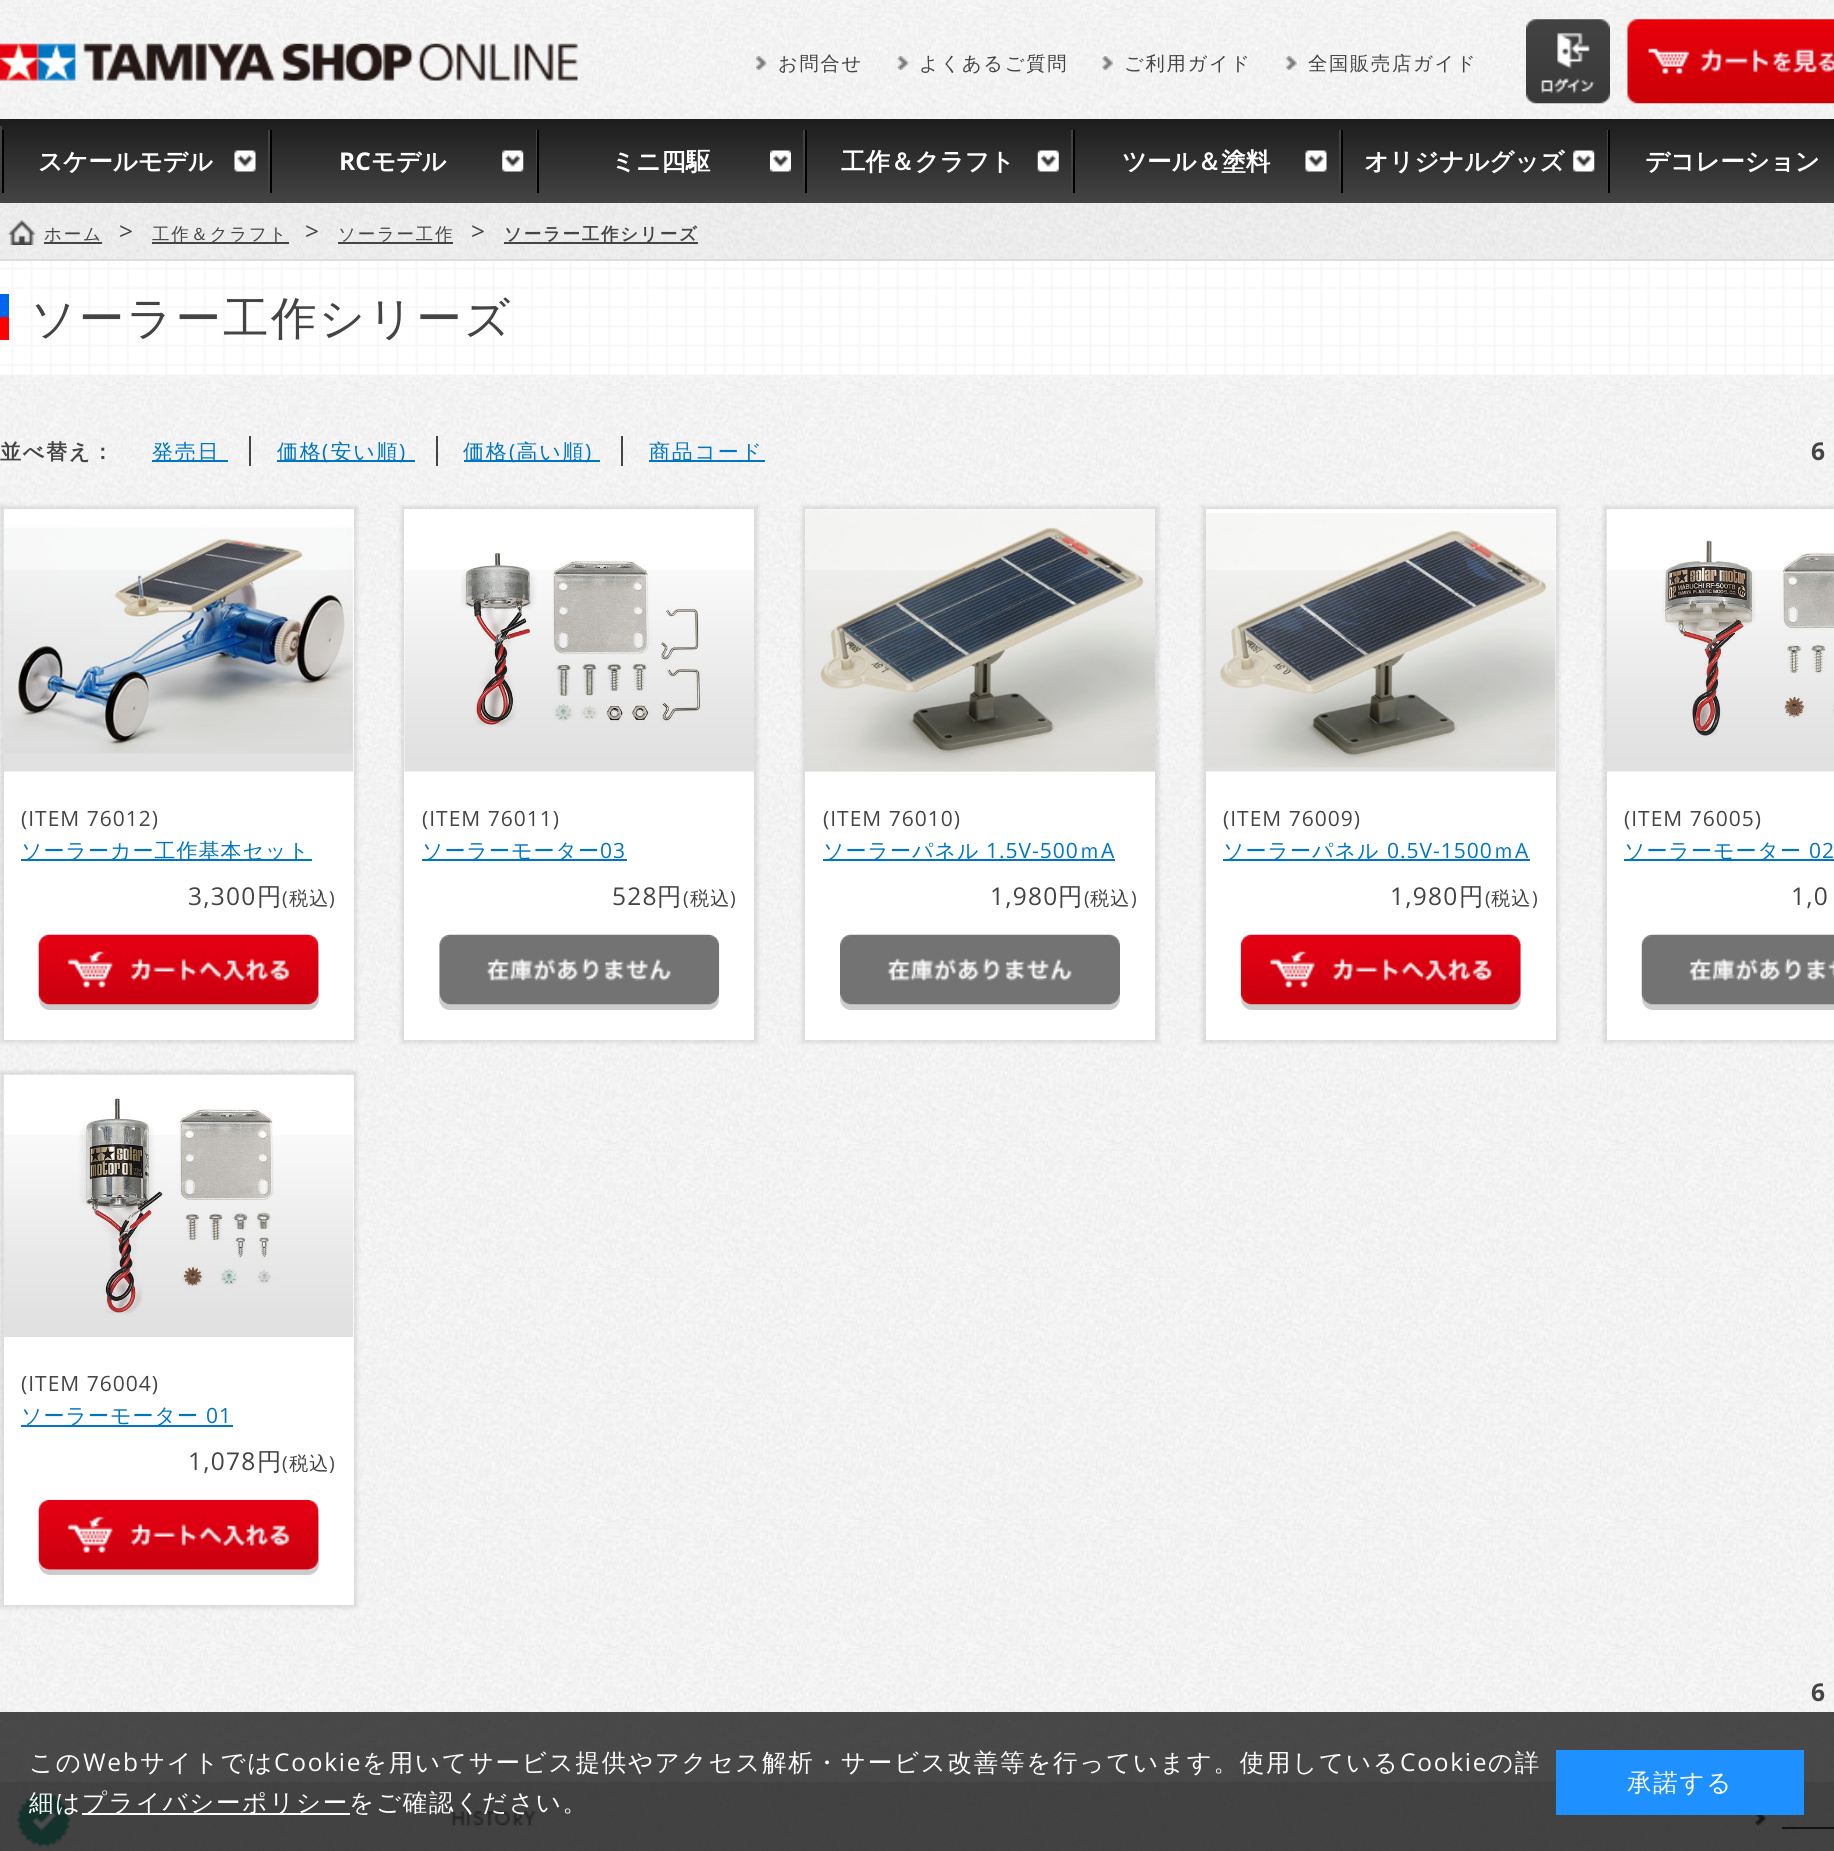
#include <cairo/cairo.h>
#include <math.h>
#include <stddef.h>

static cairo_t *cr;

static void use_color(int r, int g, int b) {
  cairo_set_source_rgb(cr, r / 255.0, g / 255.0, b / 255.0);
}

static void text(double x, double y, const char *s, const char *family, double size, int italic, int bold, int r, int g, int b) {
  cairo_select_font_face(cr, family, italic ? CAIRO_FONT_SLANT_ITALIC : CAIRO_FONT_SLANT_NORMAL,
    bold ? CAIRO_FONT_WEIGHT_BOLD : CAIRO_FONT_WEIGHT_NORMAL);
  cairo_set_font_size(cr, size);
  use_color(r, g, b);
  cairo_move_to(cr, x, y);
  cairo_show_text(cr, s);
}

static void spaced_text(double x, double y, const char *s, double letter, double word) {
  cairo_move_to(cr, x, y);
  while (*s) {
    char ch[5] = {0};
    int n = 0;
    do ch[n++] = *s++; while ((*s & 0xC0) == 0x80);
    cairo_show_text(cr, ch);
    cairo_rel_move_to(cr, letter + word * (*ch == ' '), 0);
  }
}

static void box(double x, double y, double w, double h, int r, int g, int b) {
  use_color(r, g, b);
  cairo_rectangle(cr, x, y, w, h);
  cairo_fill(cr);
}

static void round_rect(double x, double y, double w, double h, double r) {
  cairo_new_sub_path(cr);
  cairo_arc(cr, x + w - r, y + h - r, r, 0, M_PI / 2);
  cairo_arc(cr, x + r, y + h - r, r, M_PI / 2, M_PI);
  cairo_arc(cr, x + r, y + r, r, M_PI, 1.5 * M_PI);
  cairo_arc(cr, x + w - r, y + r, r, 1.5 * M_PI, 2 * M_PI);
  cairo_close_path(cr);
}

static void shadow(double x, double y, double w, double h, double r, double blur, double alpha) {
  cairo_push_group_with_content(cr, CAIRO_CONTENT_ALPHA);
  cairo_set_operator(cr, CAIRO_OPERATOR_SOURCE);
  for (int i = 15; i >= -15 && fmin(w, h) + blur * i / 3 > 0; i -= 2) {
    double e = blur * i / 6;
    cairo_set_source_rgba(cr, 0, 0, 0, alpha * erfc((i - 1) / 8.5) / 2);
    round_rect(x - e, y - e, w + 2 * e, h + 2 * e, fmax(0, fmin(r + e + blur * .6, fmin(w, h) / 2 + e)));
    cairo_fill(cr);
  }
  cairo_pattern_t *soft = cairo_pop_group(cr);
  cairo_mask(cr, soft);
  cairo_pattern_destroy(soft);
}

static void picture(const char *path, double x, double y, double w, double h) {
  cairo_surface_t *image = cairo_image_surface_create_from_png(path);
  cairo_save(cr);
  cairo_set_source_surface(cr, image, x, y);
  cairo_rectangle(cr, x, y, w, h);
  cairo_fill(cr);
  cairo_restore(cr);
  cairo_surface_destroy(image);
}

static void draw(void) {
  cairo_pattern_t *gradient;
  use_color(255, 255, 255);
  cairo_paint(cr);
  picture("img_01.png", 0, 0, 1834, 1851);
  picture("img_02.png", 0, 43, 578, 38);
  picture("img_03.png", 756, 56, 11, 14);
  picture("img_04.png", 897, 56, 12, 14);
  picture("img_05.png", 1102, 56, 11, 14);
  picture("img_06.png", 1286, 56, 11, 14);
  picture("img_07.png", 1526, 19, 84, 85);
  picture("img_08.png", 1627, 19, 207, 85);
  gradient = cairo_pattern_create_linear(917, 203, 917, 119);
  cairo_pattern_add_color_stop_rgba(gradient, 0, 0.267, 0.267, 0.267, 1);
  cairo_pattern_add_color_stop_rgba(gradient, 1, 0.11, 0.11, 0.11, 1);
  cairo_set_source(cr, gradient);
  cairo_pattern_destroy(gradient);
  cairo_rectangle(cr, 0, 119, 1834, 84);
  cairo_fill(cr);
  box(0, 126, 2, 63, 66, 66, 66);
  picture("img_09.png", 234, 150, 22, 22);
  box(268, 130, 2, 63, 66, 66, 66);
  box(2, 130, 2, 63, 0, 0, 0);
  picture("img_10.png", 502, 150, 22, 22);
  box(536, 130, 1, 63, 66, 66, 66);
  box(270, 130, 2, 63, 0, 0, 0);
  picture("img_11.png", 770, 150, 21, 22);
  box(803, 130, 2, 63, 66, 66, 66);
  box(537, 130, 2, 63, 0, 0, 0);
  picture("img_12.png", 1037, 150, 22, 22);
  box(1071, 130, 2, 63, 66, 66, 66);
  box(805, 130, 2, 63, 0, 0, 0);
  picture("img_13.png", 1305, 150, 22, 22);
  box(1339, 130, 2, 63, 66, 66, 66);
  box(1073, 130, 2, 63, 0, 0, 0);
  picture("img_14.png", 1573, 150, 22, 22);
  box(1607, 130, 1, 63, 66, 66, 66);
  box(1341, 130, 2, 63, 0, 0, 0);
  box(1608, 130, 2, 63, 0, 0, 0);
  cairo_set_source_rgba(cr, 0, 0, 0, 0.03);
  cairo_rectangle(cr, 0, 203, 1834, 56);
  cairo_fill(cr);
  box(0, 259, 1834, 2, 221, 221, 221);
  picture("img_15.png", 8, 220, 27, 25);
  box(44, 242, 58, 2, 68, 68, 68);
  box(152, 242, 137, 2, 68, 68, 68);
  box(338, 242, 115, 2, 68, 68, 68);
  box(504, 242, 194, 2, 68, 68, 68);
  box(152, 460, 76, 2, 0, 117, 193);
  box(249, 436, 2, 30, 68, 68, 68);
  box(436, 436, 2, 30, 68, 68, 68);
  box(621, 436, 2, 30, 68, 68, 68);
  box(649, 460, 116, 2, 0, 117, 193);
  box(277, 460, 138, 2, 0, 117, 193);
  box(464, 460, 136, 2, 0, 117, 193);
  use_color(0, 0, 0);
  shadow(0, 506, 357, 537, 0, 2, 0.1);
  box(4, 509, 350, 531, 255, 255, 255);
  picture("img_16.png", 3, 510, 350, 261);
  picture("img_17.png", 3, 570, 351, 202);
  box(21, 859, 291, 2, 0, 117, 193);
  use_color(204, 204, 204);
  cairo_new_path(cr);
  cairo_move_to(cr, 39, 997);
  cairo_line_to(cr, 39, 999);
  cairo_curve_to(cr, 39, 1005, 44, 1010, 50, 1010);
  cairo_line_to(cr, 308, 1010);
  cairo_curve_to(cr, 314, 1010, 319, 1005, 319, 999);
  cairo_line_to(cr, 319, 951);
  cairo_line_to(cr, 318, 948);
  cairo_line_to(cr, 318, 994);
  cairo_curve_to(cr, 318, 1000, 314, 1004, 308, 1004);
  cairo_line_to(cr, 49, 1004);
  cairo_curve_to(cr, 44, 1004, 40, 1001, 39, 997);
  cairo_close_path(cr);
  cairo_fill(cr);
  picture("img_18.png", 38, 934, 281, 71);
  use_color(0, 0, 0);
  shadow(401, 506, 357, 537, 0, 2, 0.1);
  box(404, 509, 350, 531, 255, 255, 255);
  picture("img_19.png", 461, 551, 241, 177);
  picture("img_20.png", 404, 570, 350, 202);
  box(422, 859, 205, 2, 0, 117, 193);
  use_color(204, 204, 204);
  cairo_new_path(cr);
  cairo_move_to(cr, 439, 949);
  cairo_line_to(cr, 439, 999);
  cairo_curve_to(cr, 439, 1005, 444, 1010, 450, 1010);
  cairo_line_to(cr, 708, 1010);
  cairo_curve_to(cr, 714, 1010, 719, 1005, 719, 999);
  cairo_line_to(cr, 719, 996);
  cairo_curve_to(cr, 718, 1001, 714, 1004, 709, 1004);
  cairo_line_to(cr, 450, 1004);
  cairo_curve_to(cr, 444, 1004, 439, 1000, 439, 994);
  cairo_close_path(cr);
  cairo_fill(cr);
  picture("img_21.png", 439, 934, 281, 71);
  use_color(0, 0, 0);
  shadow(802, 506, 357, 537, 0, 2, 0.1);
  box(805, 509, 350, 531, 255, 255, 255);
  picture("img_22.png", 805, 509, 350, 263);
  picture("img_23.png", 805, 570, 350, 202);
  box(823, 859, 292, 2, 0, 117, 193);
  use_color(204, 204, 204);
  cairo_new_path(cr);
  cairo_move_to(cr, 840, 994);
  cairo_line_to(cr, 840, 999);
  cairo_curve_to(cr, 840, 1005, 845, 1010, 851, 1010);
  cairo_line_to(cr, 1109, 1010);
  cairo_curve_to(cr, 1115, 1010, 1120, 1005, 1120, 999);
  cairo_line_to(cr, 1120, 994);
  cairo_curve_to(cr, 1120, 1000, 1115, 1004, 1110, 1004);
  cairo_line_to(cr, 850, 1004);
  cairo_curve_to(cr, 845, 1004, 840, 1000, 840, 994);
  cairo_close_path(cr);
  cairo_fill(cr);
  picture("img_24.png", 840, 934, 280, 71);
  use_color(0, 0, 0);
  shadow(1202, 506, 357, 537, 0, 2, 0.1);
  box(1206, 509, 350, 531, 255, 255, 255);
  picture("img_25.png", 1206, 513, 350, 255);
  picture("img_26.png", 1206, 570, 350, 202);
  box(1223, 859, 307, 2, 0, 117, 193);
  use_color(204, 204, 204);
  cairo_new_path(cr);
  cairo_move_to(cr, 1241, 996);
  cairo_line_to(cr, 1241, 999);
  cairo_curve_to(cr, 1241, 1005, 1246, 1010, 1252, 1010);
  cairo_line_to(cr, 1510, 1010);
  cairo_curve_to(cr, 1516, 1010, 1521, 1005, 1521, 999);
  cairo_line_to(cr, 1521, 949);
  cairo_line_to(cr, 1521, 994);
  cairo_curve_to(cr, 1521, 1000, 1516, 1004, 1510, 1004);
  cairo_line_to(cr, 1251, 1004);
  cairo_curve_to(cr, 1246, 1004, 1242, 1001, 1241, 996);
  cairo_close_path(cr);
  cairo_fill(cr);
  picture("img_27.png", 1240, 934, 281, 71);
  use_color(0, 0, 0);
  shadow(1603, 506, 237, 537, 0, 2, 0.1);
  box(1607, 509, 227, 531, 255, 255, 255);
  picture("img_28.png", 1606, 509, 228, 262);
  picture("img_29.png", 1606, 570, 228, 202);
  box(1624, 859, 210, 2, 0, 117, 193);
  use_color(204, 204, 204);
  cairo_new_path(cr);
  cairo_move_to(cr, 1642, 997);
  cairo_line_to(cr, 1642, 999);
  cairo_curve_to(cr, 1642, 1005, 1647, 1010, 1653, 1010);
  cairo_line_to(cr, 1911, 1010);
  cairo_curve_to(cr, 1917, 1010, 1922, 1005, 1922, 999);
  cairo_line_to(cr, 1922, 951);
  cairo_line_to(cr, 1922, 948);
  cairo_line_to(cr, 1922, 994);
  cairo_curve_to(cr, 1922, 1000, 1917, 1004, 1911, 1004);
  cairo_line_to(cr, 1652, 1004);
  cairo_curve_to(cr, 1647, 1004, 1643, 1001, 1642, 997);
  cairo_close_path(cr);
  cairo_fill(cr);
  picture("img_30.png", 1641, 934, 193, 71);
  use_color(0, 0, 0);
  shadow(0, 1071, 357, 537, 0, 2, 0.1);
  box(4, 1075, 350, 530, 255, 255, 255);
  picture("img_31.png", 3, 1074, 350, 263);
  picture("img_32.png", 3, 1135, 351, 202);
  box(21, 1425, 212, 2, 0, 117, 193);
  use_color(204, 204, 204);
  cairo_new_path(cr);
  cairo_move_to(cr, 39, 1562);
  cairo_line_to(cr, 39, 1564);
  cairo_curve_to(cr, 39, 1570, 44, 1575, 50, 1575);
  cairo_line_to(cr, 308, 1575);
  cairo_curve_to(cr, 314, 1575, 319, 1570, 319, 1564);
  cairo_line_to(cr, 319, 1516);
  cairo_line_to(cr, 318, 1513);
  cairo_line_to(cr, 318, 1559);
  cairo_curve_to(cr, 318, 1565, 314, 1570, 308, 1570);
  cairo_line_to(cr, 49, 1570);
  cairo_curve_to(cr, 44, 1570, 40, 1567, 39, 1562);
  cairo_close_path(cr);
  cairo_fill(cr);
  picture("img_33.png", 38, 1499, 281, 71);
  cairo_set_source_rgba(cr, 0, 0, 0, 0.05);
  cairo_rectangle(cr, 0, 1782, 1834, 69);
  cairo_fill(cr);
  cairo_rectangle(cr, 0, 1782, 1834, 69);
  cairo_fill(cr);
  picture("img_34.png", 451, 1811, 85, 15);
  picture("img_35.png", 17, 1792, 53, 55);
  picture("img_36.png", 1755, 1815, 11, 11);
  box(1782, 1827, 52, 2, 68, 68, 68);
  picture("img_37.png", 0, 261, 1834, 114);
  box(0, 294, 9, 23, 0, 102, 238);
  box(0, 317, 9, 23, 255, 0, 0);
  cairo_set_source_rgba(cr, 0, 0, 0, 0.7);
  cairo_rectangle(cr, 0, 1712, 1834, 139);
  cairo_fill(cr);
  box(82, 1813, 268, 2, 255, 255, 255);
  box(1556, 1750, 248, 65, 30, 144, 255);
  cairo_select_font_face(cr, "WenQuanYi Zen Hei Medium", CAIRO_FONT_SLANT_NORMAL, CAIRO_FONT_WEIGHT_NORMAL);
  cairo_set_font_size(cr, 19.25);
  use_color(68, 68, 68);
  spaced_text(778, 70, "お問合せ", 1.75, 0);
  spaced_text(919, 70, "よくあるご質問", 1.75, 0);
  spaced_text(1124, 70, "ご利用ガイド", 1.75, 0);
  spaced_text(1308, 70, "全国販売店ガイド", 1.75, 0);
  text(38, 170, "スケールモデル", "WenQuanYi Zen Hei", 24.5, 0, 1, 255, 255, 255);
  text(339, 170, "RC", "Open Sans", 24.5, 0, 1, 255, 255, 255);
  text(371, 170, "モデル", "WenQuanYi Zen Hei", 24.5, 0, 1, 255, 255, 255);
  text(611, 170, "ミニ四駆", "WenQuanYi Zen Hei", 24.5, 0, 1, 255, 255, 255);
  text(841, 170, "工作＆クラフト", "WenQuanYi Zen Hei", 24.5, 0, 1, 255, 255, 255);
  text(1122, 170, "ツール＆塗料", "WenQuanYi Zen Hei", 24.5, 0, 1, 255, 255, 255);
  text(1364, 170, "オリジナルグッズ", "WenQuanYi Zen Hei", 24.5, 0, 1, 255, 255, 255);
  text(1645, 170, "デコレーション", "WenQuanYi Zen Hei", 24.5, 0, 1, 255, 255, 255);
  cairo_select_font_face(cr, "WenQuanYi Zen Hei Medium", CAIRO_FONT_SLANT_NORMAL, CAIRO_FONT_WEIGHT_NORMAL);
  cairo_set_font_size(cr, 17.5);
  use_color(68, 68, 68);
  spaced_text(44, 240, "ホーム", 1.75, 0);
  cairo_select_font_face(cr, "Open Sans", CAIRO_FONT_SLANT_NORMAL, CAIRO_FONT_WEIGHT_NORMAL);
  cairo_set_font_size(cr, 24.5);
  spaced_text(119, 240, ">", 1.75, 0);
  cairo_select_font_face(cr, "WenQuanYi Zen Hei Medium", CAIRO_FONT_SLANT_NORMAL, CAIRO_FONT_WEIGHT_NORMAL);
  cairo_set_font_size(cr, 17.5);
  spaced_text(152, 240, "工作＆クラフト", 1.75, 0);
  cairo_select_font_face(cr, "Open Sans", CAIRO_FONT_SLANT_NORMAL, CAIRO_FONT_WEIGHT_NORMAL);
  cairo_set_font_size(cr, 24.5);
  spaced_text(305, 240, ">", 1.75, 0);
  cairo_select_font_face(cr, "WenQuanYi Zen Hei Medium", CAIRO_FONT_SLANT_NORMAL, CAIRO_FONT_WEIGHT_NORMAL);
  cairo_set_font_size(cr, 17.5);
  spaced_text(338, 240, "ソーラー工作", 1.75, 0);
  cairo_select_font_face(cr, "Open Sans", CAIRO_FONT_SLANT_NORMAL, CAIRO_FONT_WEIGHT_NORMAL);
  cairo_set_font_size(cr, 24.5);
  spaced_text(471, 240, ">", 1.75, 0);
  cairo_select_font_face(cr, "WenQuanYi Zen Hei", CAIRO_FONT_SLANT_NORMAL, CAIRO_FONT_WEIGHT_BOLD);
  cairo_set_font_size(cr, 17.5);
  spaced_text(504, 240, "ソーラー工作シリーズ", 1.75, 0);
  cairo_set_font_size(cr, 21);
  spaced_text(0, 459, "並べ替え：", 1.75, 0);
  cairo_select_font_face(cr, "WenQuanYi Zen Hei Medium", CAIRO_FONT_SLANT_NORMAL, CAIRO_FONT_WEIGHT_NORMAL);
  use_color(0, 117, 193);
  spaced_text(152, 459, "発売日", 1.75, 0);
  spaced_text(277, 459, "価格 安い順", 1.75, 0);
  spaced_text(463, 459, "価格 高い順", 1.75, 0);
  spaced_text(649, 459, "商品コード", 1.75, 0);
  cairo_select_font_face(cr, "Open Sans", CAIRO_FONT_SLANT_NORMAL, CAIRO_FONT_WEIGHT_NORMAL);
  spaced_text(322, 459, "(", 1.75, 0);
  spaced_text(399, 459, ")", 1.75, 0);
  spaced_text(509, 459, "(", 1.75, 0);
  spaced_text(585, 459, ")", 1.75, 0);
  cairo_select_font_face(cr, "Open Sans", CAIRO_FONT_SLANT_NORMAL, CAIRO_FONT_WEIGHT_BOLD);
  cairo_set_font_size(cr, 24.5);
  use_color(68, 68, 68);
  spaced_text(1811, 460, "6", 1.75, 0);
  cairo_select_font_face(cr, "Open Sans", CAIRO_FONT_SLANT_NORMAL, CAIRO_FONT_WEIGHT_NORMAL);
  cairo_set_font_size(cr, 21);
  spaced_text(21, 826, "(ITEM 76012)", 1, 0);
  cairo_select_font_face(cr, "WenQuanYi Zen Hei Medium", CAIRO_FONT_SLANT_NORMAL, CAIRO_FONT_WEIGHT_NORMAL);
  use_color(0, 117, 193);
  spaced_text(21, 858, "ソーラーカー工作基本セット", 1, 0);
  cairo_select_font_face(cr, "Open Sans", CAIRO_FONT_SLANT_NORMAL, CAIRO_FONT_WEIGHT_NORMAL);
  cairo_set_font_size(cr, 24.5);
  use_color(68, 68, 68);
  spaced_text(188, 905, "3,300", 1.25, 0);
  cairo_select_font_face(cr, "WenQuanYi Zen Hei Medium", CAIRO_FONT_SLANT_NORMAL, CAIRO_FONT_WEIGHT_NORMAL);
  spaced_text(257, 905, "円", 1.25, 0);
  cairo_select_font_face(cr, "Open Sans", CAIRO_FONT_SLANT_NORMAL, CAIRO_FONT_WEIGHT_NORMAL);
  cairo_set_font_size(cr, 19.25);
  spaced_text(282, 905, "(", 1, 0);
  cairo_select_font_face(cr, "WenQuanYi Zen Hei Medium", CAIRO_FONT_SLANT_NORMAL, CAIRO_FONT_WEIGHT_NORMAL);
  spaced_text(289, 905, "税込", 1, 0);
  cairo_select_font_face(cr, "Open Sans", CAIRO_FONT_SLANT_NORMAL, CAIRO_FONT_WEIGHT_NORMAL);
  spaced_text(329, 905, ")", 1, 0);
  cairo_set_font_size(cr, 21);
  spaced_text(422, 826, "(ITEM 76011)", 1, 0);
  cairo_select_font_face(cr, "WenQuanYi Zen Hei Medium", CAIRO_FONT_SLANT_NORMAL, CAIRO_FONT_WEIGHT_NORMAL);
  use_color(0, 117, 193);
  spaced_text(422, 858, "ソーラーモーター", 1, 0);
  cairo_select_font_face(cr, "Open Sans", CAIRO_FONT_SLANT_NORMAL, CAIRO_FONT_WEIGHT_NORMAL);
  spaced_text(600, 858, "03", 1, 0);
  cairo_set_font_size(cr, 24.5);
  use_color(68, 68, 68);
  spaced_text(612, 905, "528", 1.25, 0);
  cairo_select_font_face(cr, "WenQuanYi Zen Hei Medium", CAIRO_FONT_SLANT_NORMAL, CAIRO_FONT_WEIGHT_NORMAL);
  spaced_text(657, 905, "円", 1.25, 0);
  cairo_select_font_face(cr, "Open Sans", CAIRO_FONT_SLANT_NORMAL, CAIRO_FONT_WEIGHT_NORMAL);
  cairo_set_font_size(cr, 19.25);
  spaced_text(683, 905, "(", 1, 0);
  cairo_select_font_face(cr, "WenQuanYi Zen Hei Medium", CAIRO_FONT_SLANT_NORMAL, CAIRO_FONT_WEIGHT_NORMAL);
  spaced_text(690, 905, "税込", 1, 0);
  cairo_select_font_face(cr, "Open Sans", CAIRO_FONT_SLANT_NORMAL, CAIRO_FONT_WEIGHT_NORMAL);
  spaced_text(730, 905, ")", 1, 0);
  cairo_set_font_size(cr, 21);
  spaced_text(823, 826, "(ITEM 76010)", 1, 0);
  cairo_select_font_face(cr, "WenQuanYi Zen Hei Medium", CAIRO_FONT_SLANT_NORMAL, CAIRO_FONT_WEIGHT_NORMAL);
  use_color(0, 117, 193);
  spaced_text(823, 858, "ソーラーパネル", 1, 0);
  cairo_select_font_face(cr, "Open Sans", CAIRO_FONT_SLANT_NORMAL, CAIRO_FONT_WEIGHT_NORMAL);
  spaced_text(986, 858, "1.5V-500", 1, 0);
  cairo_select_font_face(cr, "WenQuanYi Zen Hei Medium", CAIRO_FONT_SLANT_NORMAL, CAIRO_FONT_WEIGHT_NORMAL);
  spaced_text(1079, 858, "ｍ", 1, 0);
  cairo_select_font_face(cr, "Open Sans", CAIRO_FONT_SLANT_NORMAL, CAIRO_FONT_WEIGHT_NORMAL);
  spaced_text(1101, 858, "A", 1, 0);
  cairo_set_font_size(cr, 24.5);
  use_color(68, 68, 68);
  spaced_text(990, 905, "1,980", 1.25, 0);
  cairo_select_font_face(cr, "WenQuanYi Zen Hei Medium", CAIRO_FONT_SLANT_NORMAL, CAIRO_FONT_WEIGHT_NORMAL);
  spaced_text(1058, 905, "円", 1.25, 0);
  cairo_select_font_face(cr, "Open Sans", CAIRO_FONT_SLANT_NORMAL, CAIRO_FONT_WEIGHT_NORMAL);
  cairo_set_font_size(cr, 19.25);
  spaced_text(1084, 905, "(", 1, 0);
  cairo_select_font_face(cr, "WenQuanYi Zen Hei Medium", CAIRO_FONT_SLANT_NORMAL, CAIRO_FONT_WEIGHT_NORMAL);
  spaced_text(1090, 905, "税込", 1, 0);
  cairo_select_font_face(cr, "Open Sans", CAIRO_FONT_SLANT_NORMAL, CAIRO_FONT_WEIGHT_NORMAL);
  spaced_text(1131, 905, ")", 1, 0);
  cairo_set_font_size(cr, 21);
  spaced_text(1223, 826, "(ITEM 76009)", 1, 0);
  cairo_select_font_face(cr, "WenQuanYi Zen Hei Medium", CAIRO_FONT_SLANT_NORMAL, CAIRO_FONT_WEIGHT_NORMAL);
  use_color(0, 117, 193);
  spaced_text(1223, 858, "ソーラーパネル", 1, 0);
  cairo_select_font_face(cr, "Open Sans", CAIRO_FONT_SLANT_NORMAL, CAIRO_FONT_WEIGHT_NORMAL);
  spaced_text(1387, 858, "0.5V-1500", 1, 0);
  cairo_select_font_face(cr, "WenQuanYi Zen Hei Medium", CAIRO_FONT_SLANT_NORMAL, CAIRO_FONT_WEIGHT_NORMAL);
  spaced_text(1493, 858, "ｍ", 1, 0);
  cairo_select_font_face(cr, "Open Sans", CAIRO_FONT_SLANT_NORMAL, CAIRO_FONT_WEIGHT_NORMAL);
  spaced_text(1515, 858, "A", 1, 0);
  cairo_set_font_size(cr, 24.5);
  use_color(68, 68, 68);
  spaced_text(1390, 905, "1,980", 1.25, 0);
  cairo_select_font_face(cr, "WenQuanYi Zen Hei Medium", CAIRO_FONT_SLANT_NORMAL, CAIRO_FONT_WEIGHT_NORMAL);
  spaced_text(1459, 905, "円", 1.25, 0);
  cairo_select_font_face(cr, "Open Sans", CAIRO_FONT_SLANT_NORMAL, CAIRO_FONT_WEIGHT_NORMAL);
  cairo_set_font_size(cr, 19.25);
  spaced_text(1485, 905, "(", 1, 0);
  cairo_select_font_face(cr, "WenQuanYi Zen Hei Medium", CAIRO_FONT_SLANT_NORMAL, CAIRO_FONT_WEIGHT_NORMAL);
  spaced_text(1491, 905, "税込", 1, 0);
  cairo_select_font_face(cr, "Open Sans", CAIRO_FONT_SLANT_NORMAL, CAIRO_FONT_WEIGHT_NORMAL);
  spaced_text(1532, 905, ")", 1, 0);
  cairo_set_font_size(cr, 21);
  spaced_text(1624, 826, "(ITEM 76005)", 1, 0);
  cairo_select_font_face(cr, "WenQuanYi Zen Hei Medium", CAIRO_FONT_SLANT_NORMAL, CAIRO_FONT_WEIGHT_NORMAL);
  use_color(0, 117, 193);
  spaced_text(1624, 858, "ソーラーモーター", 1, 0);
  cairo_select_font_face(cr, "Open Sans", CAIRO_FONT_SLANT_NORMAL, CAIRO_FONT_WEIGHT_NORMAL);
  spaced_text(1809, 858, "02", 1, 0);
  cairo_set_font_size(cr, 24.5);
  use_color(68, 68, 68);
  spaced_text(1791, 905, "1,0", 1.25, 0);
  cairo_set_font_size(cr, 21);
  spaced_text(21, 1391, "(ITEM 76004)", 1, 0);
  cairo_select_font_face(cr, "WenQuanYi Zen Hei Medium", CAIRO_FONT_SLANT_NORMAL, CAIRO_FONT_WEIGHT_NORMAL);
  use_color(0, 117, 193);
  spaced_text(21, 1423, "ソーラーモーター", 1, 0);
  cairo_select_font_face(cr, "Open Sans", CAIRO_FONT_SLANT_NORMAL, CAIRO_FONT_WEIGHT_NORMAL);
  spaced_text(206, 1423, "01", 1, 0);
  cairo_set_font_size(cr, 24.5);
  use_color(68, 68, 68);
  spaced_text(188, 1470, "1,078", 1.25, 0);
  cairo_select_font_face(cr, "WenQuanYi Zen Hei Medium", CAIRO_FONT_SLANT_NORMAL, CAIRO_FONT_WEIGHT_NORMAL);
  spaced_text(257, 1470, "円", 1.25, 0);
  cairo_select_font_face(cr, "Open Sans", CAIRO_FONT_SLANT_NORMAL, CAIRO_FONT_WEIGHT_NORMAL);
  cairo_set_font_size(cr, 19.25);
  spaced_text(282, 1470, "(", 1, 0);
  cairo_select_font_face(cr, "WenQuanYi Zen Hei Medium", CAIRO_FONT_SLANT_NORMAL, CAIRO_FONT_WEIGHT_NORMAL);
  spaced_text(289, 1470, "税込", 1, 0);
  cairo_select_font_face(cr, "Open Sans", CAIRO_FONT_SLANT_NORMAL, CAIRO_FONT_WEIGHT_NORMAL);
  spaced_text(329, 1470, ")", 1, 0);
  cairo_select_font_face(cr, "Open Sans", CAIRO_FONT_SLANT_NORMAL, CAIRO_FONT_WEIGHT_BOLD);
  cairo_set_font_size(cr, 24.5);
  spaced_text(1811, 1701, "6", 1.75, 0);
  cairo_select_font_face(cr, "WenQuanYi Zen Hei Medium", CAIRO_FONT_SLANT_NORMAL, CAIRO_FONT_WEIGHT_NORMAL);
  cairo_set_font_size(cr, 45.5);
  spaced_text(30, 334, "ソーラー工作シリーズ", 2.25, 0);
  cairo_set_font_size(cr, 24.5);
  use_color(255, 255, 255);
  spaced_text(29, 1771, "この", 1.75, 0);
  cairo_select_font_face(cr, "Open Sans", CAIRO_FONT_SLANT_NORMAL, CAIRO_FONT_WEIGHT_NORMAL);
  spaced_text(83, 1771, "Web", 1.75, 0);
  cairo_select_font_face(cr, "WenQuanYi Zen Hei Medium", CAIRO_FONT_SLANT_NORMAL, CAIRO_FONT_WEIGHT_NORMAL);
  spaced_text(140, 1771, "サイトでは", 1.75, 0);
  cairo_select_font_face(cr, "Open Sans", CAIRO_FONT_SLANT_NORMAL, CAIRO_FONT_WEIGHT_NORMAL);
  spaced_text(274, 1771, "Cookie", 1.75, 0);
  cairo_select_font_face(cr, "WenQuanYi Zen Hei Medium", CAIRO_FONT_SLANT_NORMAL, CAIRO_FONT_WEIGHT_NORMAL);
  spaced_text(362, 1771, "を用いてサービス提供やアクセス解析・サービス改善等を行っています。使用している", 1.75, 0);
  cairo_select_font_face(cr, "Open Sans", CAIRO_FONT_SLANT_NORMAL, CAIRO_FONT_WEIGHT_NORMAL);
  spaced_text(1400, 1771, "Cookie", 1.75, 0);
  cairo_select_font_face(cr, "WenQuanYi Zen Hei Medium", CAIRO_FONT_SLANT_NORMAL, CAIRO_FONT_WEIGHT_NORMAL);
  spaced_text(1488, 1771, "の詳", 1.75, 0);
  spaced_text(29, 1811, "細は", 1.75, 0);
  spaced_text(82, 1811, "プライバシーポリシーをご確認ください。", 1.75, 0);
  spaced_text(1627, 1791, "承諾する", 1.75, 0);
}

int main(void) {
  cairo_surface_t *surface = cairo_image_surface_create(CAIRO_FORMAT_RGB24, 1834, 1851);
  cr = cairo_create(surface);
  cairo_font_options_t *options = cairo_font_options_create();
  cairo_font_options_set_hint_metrics(options, CAIRO_HINT_METRICS_OFF);
  cairo_font_options_set_hint_style(options, CAIRO_HINT_STYLE_NONE);
  cairo_set_font_options(cr, options);
  cairo_set_miter_limit(cr, 4);
  draw();
  cairo_surface_write_to_png(surface, "out.png");
  cairo_font_options_destroy(options);
  cairo_destroy(cr);
  cairo_surface_destroy(surface);
  return 0;
}
